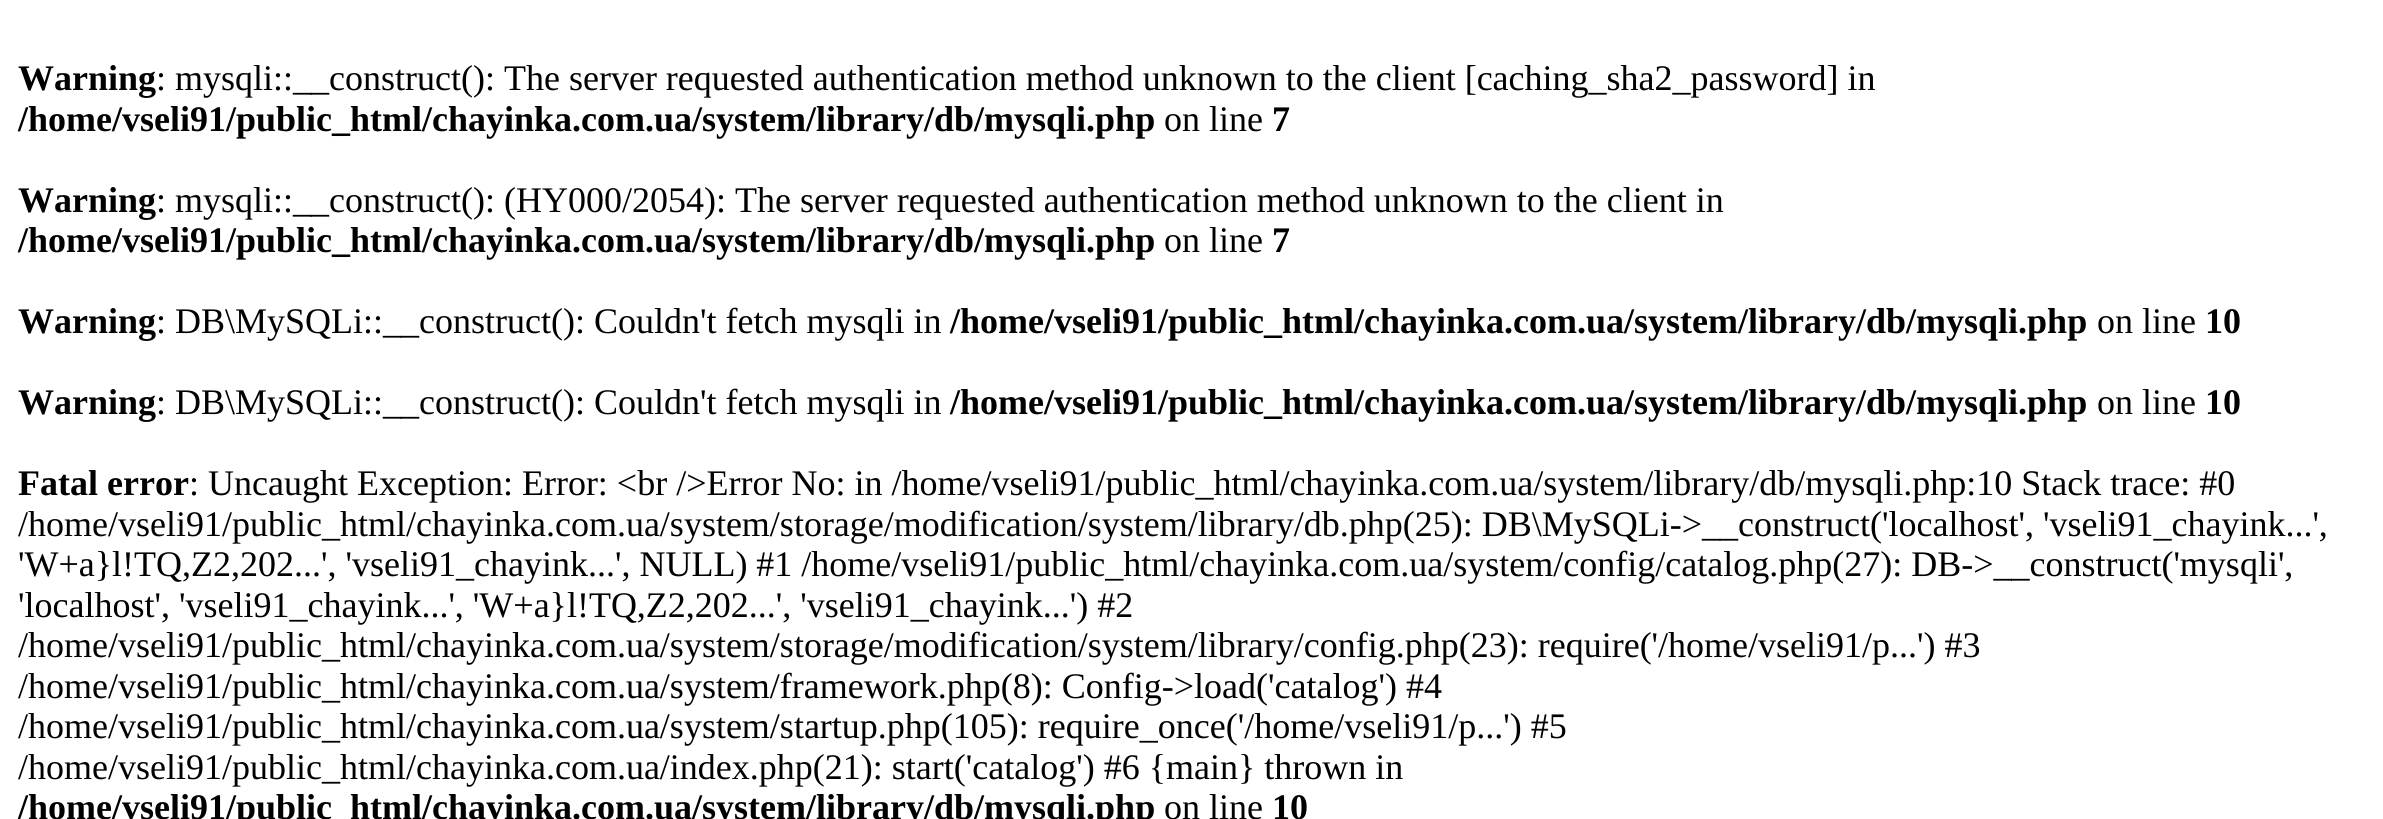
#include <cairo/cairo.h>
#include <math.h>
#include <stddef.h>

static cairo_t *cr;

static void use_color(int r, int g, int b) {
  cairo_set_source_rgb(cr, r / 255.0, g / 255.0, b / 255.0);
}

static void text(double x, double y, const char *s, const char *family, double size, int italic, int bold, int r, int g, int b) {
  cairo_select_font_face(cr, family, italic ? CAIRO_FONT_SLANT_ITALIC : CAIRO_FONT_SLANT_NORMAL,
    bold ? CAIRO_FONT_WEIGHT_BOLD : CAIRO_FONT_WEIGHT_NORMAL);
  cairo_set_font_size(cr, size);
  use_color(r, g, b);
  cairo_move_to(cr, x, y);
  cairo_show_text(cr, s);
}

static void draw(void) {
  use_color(255, 255, 255);
  cairo_paint(cr);
  text(18, 90, "Warning", "Liberation Serif", 36, 0, 1, 0, 0, 0);
  text(156, 90, ": mysqli::__construct(): The server requested authentication method unknown to the client [caching_sha2_password] in", "Liberation Serif", 36, 0, 0, 0, 0, 0);
  text(18, 131, "/home/vseli91/public_html/chayinka.com.ua/system/library/db/mysqli.php", "Liberation Serif", 36, 0, 1, 0, 0, 0);
  text(1164, 131, "on line", "Liberation Serif", 36, 0, 0, 0, 0, 0);
  text(1272, 131, "7", "Liberation Serif", 36, 0, 1, 0, 0, 0);
  text(18, 212, "Warning", "Liberation Serif", 36, 0, 1, 0, 0, 0);
  text(156, 212, ": mysqli::__construct(): (HY000/2054): The server requested authentication method unknown to the client in", "Liberation Serif", 36, 0, 0, 0, 0, 0);
  text(18, 252, "/home/vseli91/public_html/chayinka.com.ua/system/library/db/mysqli.php", "Liberation Serif", 36, 0, 1, 0, 0, 0);
  text(1164, 252, "on line", "Liberation Serif", 36, 0, 0, 0, 0, 0);
  text(1272, 252, "7", "Liberation Serif", 36, 0, 1, 0, 0, 0);
  text(18, 333, "Warning", "Liberation Serif", 36, 0, 1, 0, 0, 0);
  text(156, 333, ": DB\\MySQLi::__construct(): Couldn't fetch mysqli in", "Liberation Serif", 36, 0, 0, 0, 0, 0);
  text(950, 333, "/home/vseli91/public_html/chayinka.com.ua/system/library/db/mysqli.php", "Liberation Serif", 36, 0, 1, 0, 0, 0);
  text(2097, 333, "on line", "Liberation Serif", 36, 0, 0, 0, 0, 0);
  text(2205, 333, "10", "Liberation Serif", 36, 0, 1, 0, 0, 0);
  text(18, 414, "Warning", "Liberation Serif", 36, 0, 1, 0, 0, 0);
  text(156, 414, ": DB\\MySQLi::__construct(): Couldn't fetch mysqli in", "Liberation Serif", 36, 0, 0, 0, 0, 0);
  text(950, 414, "/home/vseli91/public_html/chayinka.com.ua/system/library/db/mysqli.php", "Liberation Serif", 36, 0, 1, 0, 0, 0);
  text(2097, 414, "on line", "Liberation Serif", 36, 0, 0, 0, 0, 0);
  text(2205, 414, "10", "Liberation Serif", 36, 0, 1, 0, 0, 0);
  text(18, 495, "Fatal error", "Liberation Serif", 36, 0, 1, 0, 0, 0);
  text(189, 495, ": Uncaught Exception: Error: <br />Error No: in /home/vseli91/public_html/chayinka.com.ua/system/library/db/mysqli.php:10 Stack trace: #0", "Liberation Serif", 36, 0, 0, 0, 0, 0);
  text(18, 536, "/home/vseli91/public_html/chayinka.com.ua/system/storage/modification/system/library/db.php(25): DB\\MySQLi->__construct('localhost', 'vseli91_chayink...',", "Liberation Serif", 36, 0, 0, 0, 0, 0);
  text(18, 576, "'W+a}l!TQ,Z2,202...', 'vseli91_chayink...', NULL) #1 /home/vseli91/public_html/chayinka.com.ua/system/config/catalog.php(27): DB->__construct('mysqli',", "Liberation Serif", 36, 0, 0, 0, 0, 0);
  text(18, 617, "'localhost', 'vseli91_chayink...', 'W+a}l!TQ,Z2,202...', 'vseli91_chayink...') #2", "Liberation Serif", 36, 0, 0, 0, 0, 0);
  text(18, 657, "/home/vseli91/public_html/chayinka.com.ua/system/storage/modification/system/library/config.php(23): require('/home/vseli91/p...') #3", "Liberation Serif", 36, 0, 0, 0, 0, 0);
  text(18, 698, "/home/vseli91/public_html/chayinka.com.ua/system/framework.php(8): Config->load('catalog') #4", "Liberation Serif", 36, 0, 0, 0, 0, 0);
  text(18, 738, "/home/vseli91/public_html/chayinka.com.ua/system/startup.php(105): require_once('/home/vseli91/p...') #5", "Liberation Serif", 36, 0, 0, 0, 0, 0);
  text(18, 779, "/home/vseli91/public_html/chayinka.com.ua/index.php(21): start('catalog') #6 {main} thrown in", "Liberation Serif", 36, 0, 0, 0, 0, 0);
  text(18, 819, "/home/vseli91/public_html/chayinka.com.ua/system/library/db/mysqli.php", "Liberation Serif", 36, 0, 1, 0, 0, 0);
  text(1164, 819, "on line", "Liberation Serif", 36, 0, 0, 0, 0, 0);
  text(1272, 819, "10", "Liberation Serif", 36, 0, 1, 0, 0, 0);
}

int main(void) {
  cairo_surface_t *surface = cairo_image_surface_create(CAIRO_FORMAT_RGB24, 2383, 819);
  cr = cairo_create(surface);
  cairo_font_options_t *options = cairo_font_options_create();
  cairo_font_options_set_hint_metrics(options, CAIRO_HINT_METRICS_OFF);
  cairo_font_options_set_hint_style(options, CAIRO_HINT_STYLE_NONE);
  cairo_set_font_options(cr, options);
  cairo_set_miter_limit(cr, 4);
  draw();
  cairo_surface_write_to_png(surface, "out.png");
  cairo_font_options_destroy(options);
  cairo_destroy(cr);
  cairo_surface_destroy(surface);
  return 0;
}
